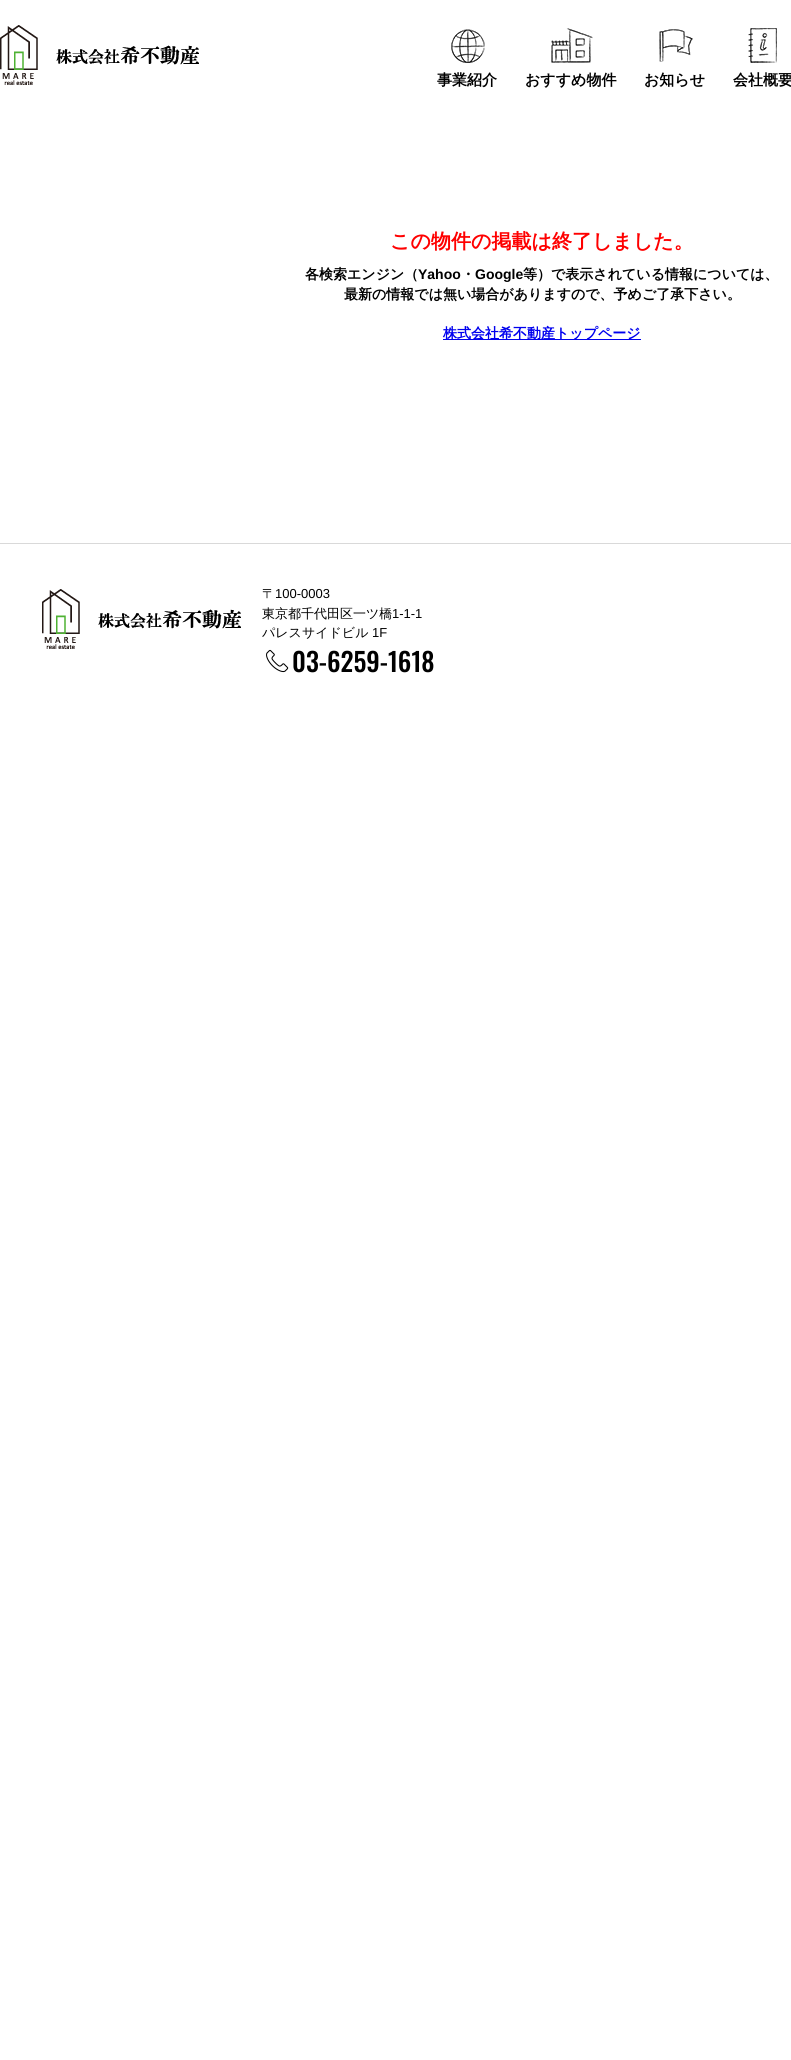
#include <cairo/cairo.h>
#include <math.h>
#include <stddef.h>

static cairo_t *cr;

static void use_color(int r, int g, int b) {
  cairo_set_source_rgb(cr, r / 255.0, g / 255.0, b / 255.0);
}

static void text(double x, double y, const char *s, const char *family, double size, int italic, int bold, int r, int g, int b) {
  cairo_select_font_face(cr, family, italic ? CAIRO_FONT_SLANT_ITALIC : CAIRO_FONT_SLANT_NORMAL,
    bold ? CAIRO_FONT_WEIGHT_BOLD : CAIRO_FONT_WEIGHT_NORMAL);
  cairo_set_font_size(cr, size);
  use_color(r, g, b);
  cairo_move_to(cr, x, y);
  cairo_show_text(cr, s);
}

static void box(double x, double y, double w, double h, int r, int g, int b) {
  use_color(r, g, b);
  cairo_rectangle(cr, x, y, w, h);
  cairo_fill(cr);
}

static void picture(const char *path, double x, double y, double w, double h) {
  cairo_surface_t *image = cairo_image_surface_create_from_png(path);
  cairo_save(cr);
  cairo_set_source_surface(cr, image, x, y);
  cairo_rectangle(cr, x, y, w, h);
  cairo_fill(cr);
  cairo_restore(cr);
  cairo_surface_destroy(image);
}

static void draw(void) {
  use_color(255, 255, 255);
  cairo_paint(cr);
  picture("img_01.png", 0, 25, 199, 60);
  picture("img_02.png", 451, 29, 34, 34);
  picture("img_03.png", 551, 28, 42, 35);
  picture("img_04.png", 659, 29, 34, 33);
  picture("img_05.png", 748, 28, 29, 35);
  box(443, 339, 198, 1, 0, 0, 238);
  box(0, 543, 791, 1, 217, 217, 217);
  picture("img_01.png", 42, 589, 199, 60);
  picture("img_06.png", 266, 649, 23, 24);
  text(437, 85, "事業紹介", "WenQuanYi Zen Hei", 15, 0, 1, 0, 0, 0);
  text(525, 85, "おすすめ物件", "WenQuanYi Zen Hei", 15, 0, 1, 0, 0, 0);
  text(644, 85, "お知らせ", "WenQuanYi Zen Hei", 15, 0, 1, 0, 0, 0);
  text(733, 85, "会社概要", "WenQuanYi Zen Hei", 15, 0, 1, 0, 0, 0);
  text(390, 248, "この物件の掲載は終了しました。", "WenQuanYi Zen Hei", 20, 0, 1, 255, 0, 0);
  text(305, 279, "各検索エンジン（", "WenQuanYi Zen Hei", 14, 0, 1, 0, 0, 0);
  text(418, 279, "Yahoo", "Liberation Sans", 14, 0, 1, 0, 0, 0);
  text(461, 279, "・", "WenQuanYi Zen Hei", 14, 0, 1, 0, 0, 0);
  text(475, 279, "Google", "Liberation Sans", 14, 0, 1, 0, 0, 0);
  text(523, 279, "等）で表示されている情報については、", "WenQuanYi Zen Hei", 14, 0, 1, 0, 0, 0);
  text(344, 299, "最新の情報では無い場合がありますので、予めご了承下さい。", "WenQuanYi Zen Hei", 14, 0, 1, 0, 0, 0);
  text(443, 338, "株式会社希不動産トップページ", "WenQuanYi Zen Hei", 14, 0, 1, 0, 0, 238);
  text(262, 598, "〒", "WenQuanYi Zen Hei Medium", 13, 0, 0, 0, 0, 0);
  text(275, 598, "100-0003", "Liberation Sans", 13, 0, 0, 0, 0, 0);
  text(262, 618, "東京都千代田区一ツ橋", "WenQuanYi Zen Hei Medium", 13, 0, 0, 0, 0, 0);
  text(392, 618, "1-1-1", "Liberation Sans", 13, 0, 0, 0, 0, 0);
  text(262, 637, "パレスサイドビル", "WenQuanYi Zen Hei Medium", 13, 0, 0, 0, 0, 0);
  text(372, 637, "1F", "Liberation Sans", 13, 0, 0, 0, 0, 0);
  text(292, 672, "03-6259-1618", "Oswald Medium", 26, 0, 0, 0, 0, 0);
}

int main(void) {
  cairo_surface_t *surface = cairo_image_surface_create(CAIRO_FORMAT_RGB24, 791, 2060);
  cr = cairo_create(surface);
  cairo_font_options_t *options = cairo_font_options_create();
  cairo_font_options_set_hint_metrics(options, CAIRO_HINT_METRICS_OFF);
  cairo_font_options_set_hint_style(options, CAIRO_HINT_STYLE_NONE);
  cairo_set_font_options(cr, options);
  cairo_set_miter_limit(cr, 4);
  draw();
  cairo_surface_write_to_png(surface, "out.png");
  cairo_font_options_destroy(options);
  cairo_destroy(cr);
  cairo_surface_destroy(surface);
  return 0;
}
